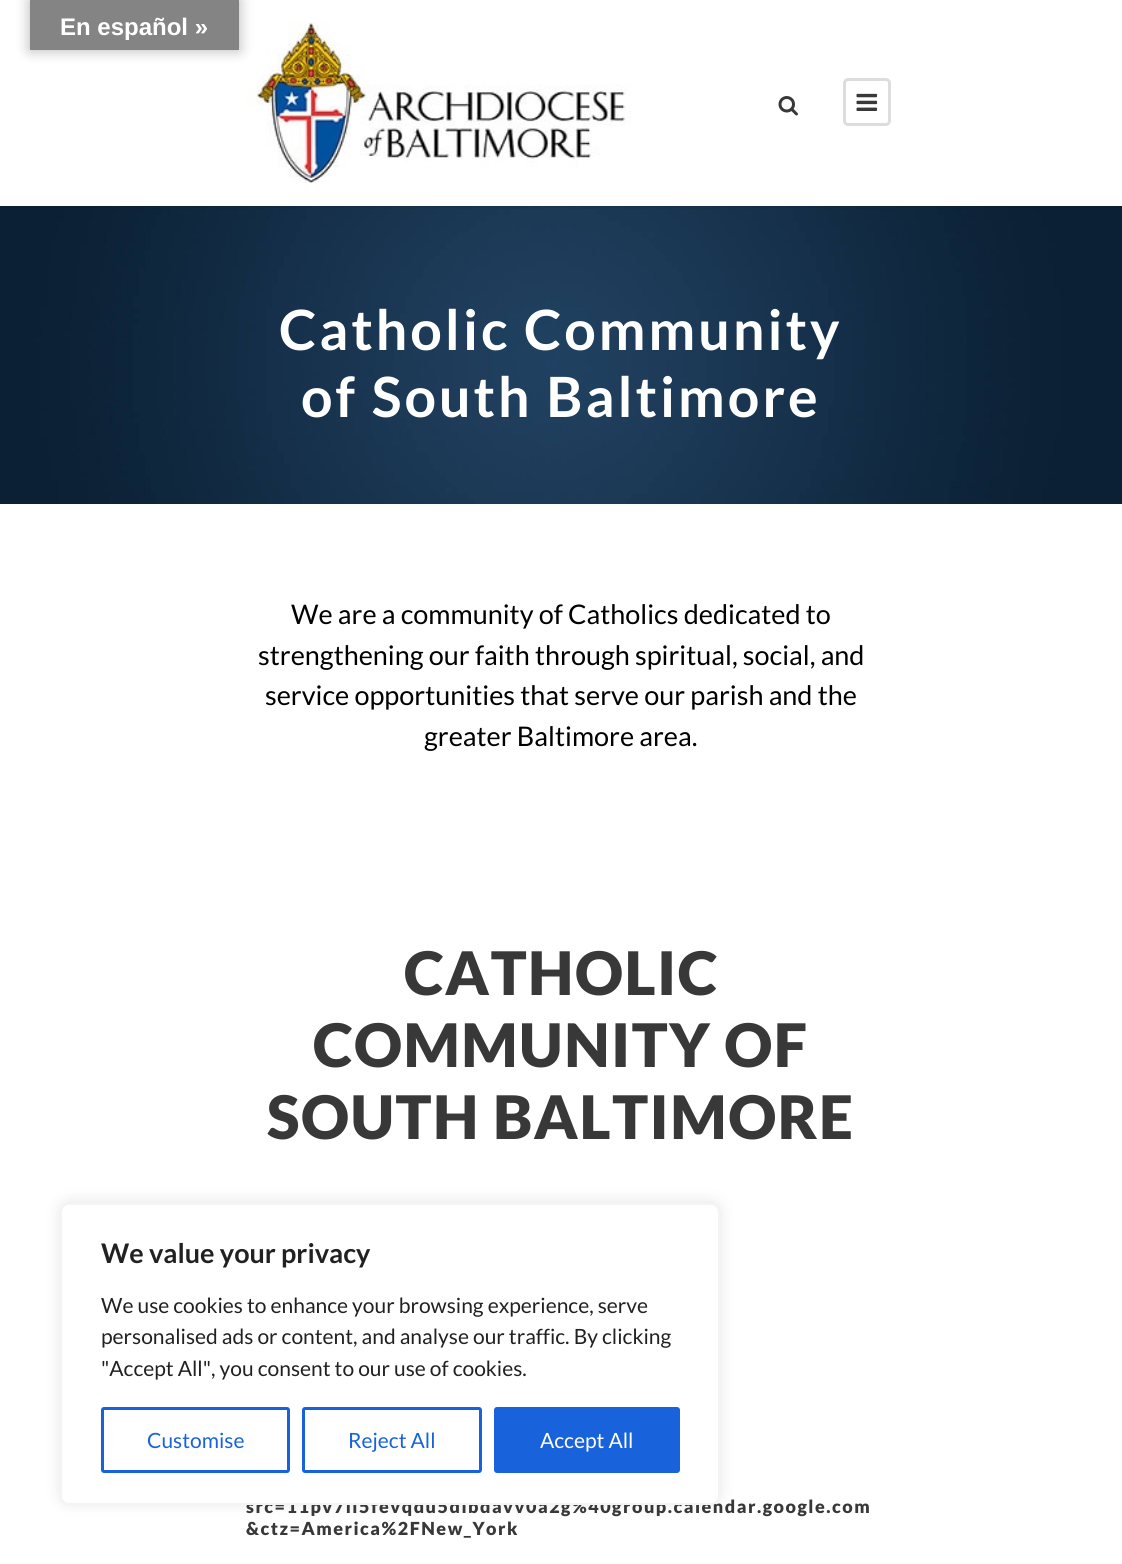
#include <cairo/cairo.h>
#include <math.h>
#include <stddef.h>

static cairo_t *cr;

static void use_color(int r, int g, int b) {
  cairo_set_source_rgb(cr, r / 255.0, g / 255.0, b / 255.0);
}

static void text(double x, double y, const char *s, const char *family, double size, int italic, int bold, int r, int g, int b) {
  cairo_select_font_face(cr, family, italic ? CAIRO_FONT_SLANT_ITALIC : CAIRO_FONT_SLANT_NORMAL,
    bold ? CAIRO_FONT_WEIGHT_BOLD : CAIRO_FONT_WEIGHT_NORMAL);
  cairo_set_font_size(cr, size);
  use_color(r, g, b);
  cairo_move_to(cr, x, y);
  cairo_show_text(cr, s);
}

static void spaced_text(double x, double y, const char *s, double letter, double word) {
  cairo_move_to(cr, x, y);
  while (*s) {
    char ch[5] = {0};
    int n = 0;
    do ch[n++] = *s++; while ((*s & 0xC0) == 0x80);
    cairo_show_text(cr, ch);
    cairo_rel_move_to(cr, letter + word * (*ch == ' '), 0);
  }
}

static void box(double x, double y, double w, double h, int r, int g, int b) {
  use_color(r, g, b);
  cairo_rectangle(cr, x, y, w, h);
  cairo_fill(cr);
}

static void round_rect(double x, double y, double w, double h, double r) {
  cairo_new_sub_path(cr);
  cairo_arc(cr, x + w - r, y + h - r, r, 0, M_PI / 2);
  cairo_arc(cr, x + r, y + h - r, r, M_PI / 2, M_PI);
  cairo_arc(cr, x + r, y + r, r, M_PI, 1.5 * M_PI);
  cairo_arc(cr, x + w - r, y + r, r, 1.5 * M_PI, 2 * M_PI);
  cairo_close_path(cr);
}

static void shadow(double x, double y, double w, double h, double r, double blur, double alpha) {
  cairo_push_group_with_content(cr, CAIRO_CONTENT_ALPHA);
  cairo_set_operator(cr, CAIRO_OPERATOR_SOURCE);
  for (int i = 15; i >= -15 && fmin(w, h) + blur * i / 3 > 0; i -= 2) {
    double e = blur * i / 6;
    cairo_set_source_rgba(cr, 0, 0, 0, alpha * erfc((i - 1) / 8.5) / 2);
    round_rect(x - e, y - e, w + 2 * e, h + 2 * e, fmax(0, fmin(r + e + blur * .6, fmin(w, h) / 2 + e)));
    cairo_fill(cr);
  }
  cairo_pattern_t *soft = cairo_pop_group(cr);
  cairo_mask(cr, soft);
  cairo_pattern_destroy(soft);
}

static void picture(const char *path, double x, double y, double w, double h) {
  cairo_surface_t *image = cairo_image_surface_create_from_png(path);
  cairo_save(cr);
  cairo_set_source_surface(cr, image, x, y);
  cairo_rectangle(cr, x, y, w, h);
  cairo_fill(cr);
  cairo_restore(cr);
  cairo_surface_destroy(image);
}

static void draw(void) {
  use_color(255, 255, 255);
  cairo_paint(cr);
  picture("img_04.png", 0, 206, 1122, 298);
  use_color(0, 0, 0);
  shadow(0, 2, 1122, 205, 0, 1.5, 0.1);
  box(0, 0, 1122, 206, 255, 255, 255);
  picture("img_01.png", 246, 22, 385, 161);
  picture("img_02.png", 778, 96, 20, 20);
  round_rect(844.5, 79.5, 45, 45, 3.5);
  use_color(221, 221, 221);
  cairo_set_line_width(cr, 3);
  cairo_stroke(cr);
  picture("img_03.png", 856, 93, 22, 18);
  use_color(0, 0, 0);
  shadow(30, 0, 209, 50, 0, 7, 0.3);
  box(30, 0, 209, 50, 132, 132, 132);
  use_color(172, 171, 171);
  shadow(60, 1202, 660, 301, 9, 7.5, 0.3);
  text(60, 35, "En español »", "Liberation Sans", 24, 0, 1, 255, 255, 255);
  cairo_select_font_face(cr, "Lato", CAIRO_FONT_SLANT_NORMAL, CAIRO_FONT_WEIGHT_BOLD);
  cairo_set_font_size(cr, 55.5);
  spaced_text(279, 350, "Catholic Community", 3, 0);
  spaced_text(301, 417, "of South Baltimore", 3, 0);
  text(291, 624, "We are a community of Catholics dedicated to", "Lato", 27, 0, 0, 0, 0, 0);
  text(258, 665, "strengthening our faith through spiritual, social, and", "Lato", 27, 0, 0, 0, 0, 0);
  text(265, 705, "service opportunities that serve our parish and the", "Lato", 27, 0, 0, 0, 0, 0);
  text(424, 746, "greater Baltimore area.", "Lato", 27, 0, 0, 0, 0, 0);
  cairo_select_font_face(cr, "Lato Black", CAIRO_FONT_SLANT_NORMAL, CAIRO_FONT_WEIGHT_NORMAL);
  cairo_set_font_size(cr, 60);
  use_color(56, 56, 56);
  spaced_text(404, 995, "CATHOLIC", 1.5, 0);
  spaced_text(313, 1067, "COMMUNITY OF", 1.5, 0);
  spaced_text(267, 1139, "SOUTH BALTIMORE", 1.5, 0);
  cairo_set_font_size(cr, 18);
  spaced_text(246, 1513, "src=11pv7ll5fevqdu5dibdavv0a2g%40group.calendar.google.com", 1.5, 0);
  spaced_text(246, 1535, "&ctz=America%2FNew_York", 1.5, 0);
  use_color(255, 255, 255);
  round_rect(61, 1204, 658, 300, 8);
  cairo_fill_preserve(cr);
  use_color(244, 244, 244);
  cairo_set_line_width(cr, 2);
  cairo_stroke(cr);
  text(101, 1263, "We value your privacy", "Lato", 27, 0, 1, 33, 33, 33);
  text(101, 1313, "We use cookies to enhance your browsing experience, serve", "Lato", 21, 0, 0, 33, 33, 33);
  text(101, 1344, "personalised ads or content, and analyse our traffic. By clicking", "Lato", 21, 0, 0, 33, 33, 33);
  text(101, 1376, "\"Accept All\", you consent to our use of cookies.", "Lato", 21, 0, 0, 33, 33, 33);
  round_rect(102.5, 1408.5, 186, 63, 1.5);
  use_color(24, 99, 220);
  cairo_set_line_width(cr, 3);
  cairo_stroke(cr);
  text(147, 1448, "Customise", "Lato", 21, 0, 0, 24, 99, 220);
  round_rect(303.5, 1408.5, 177, 63, 1.5);
  cairo_stroke(cr);
  text(348, 1448, "Reject All", "Lato", 21, 0, 0, 24, 99, 220);
  round_rect(495.5, 1408.5, 183, 63, 1.5);
  cairo_fill_preserve(cr);
  cairo_stroke(cr);
  text(540, 1448, "Accept All", "Lato", 21, 0, 0, 255, 255, 255);
}

int main(void) {
  cairo_surface_t *surface = cairo_image_surface_create(CAIRO_FORMAT_RGB24, 1122, 1564);
  cr = cairo_create(surface);
  cairo_font_options_t *options = cairo_font_options_create();
  cairo_font_options_set_hint_metrics(options, CAIRO_HINT_METRICS_OFF);
  cairo_font_options_set_hint_style(options, CAIRO_HINT_STYLE_NONE);
  cairo_set_font_options(cr, options);
  cairo_set_miter_limit(cr, 4);
  draw();
  cairo_surface_write_to_png(surface, "out.png");
  cairo_font_options_destroy(options);
  cairo_destroy(cr);
  cairo_surface_destroy(surface);
  return 0;
}
